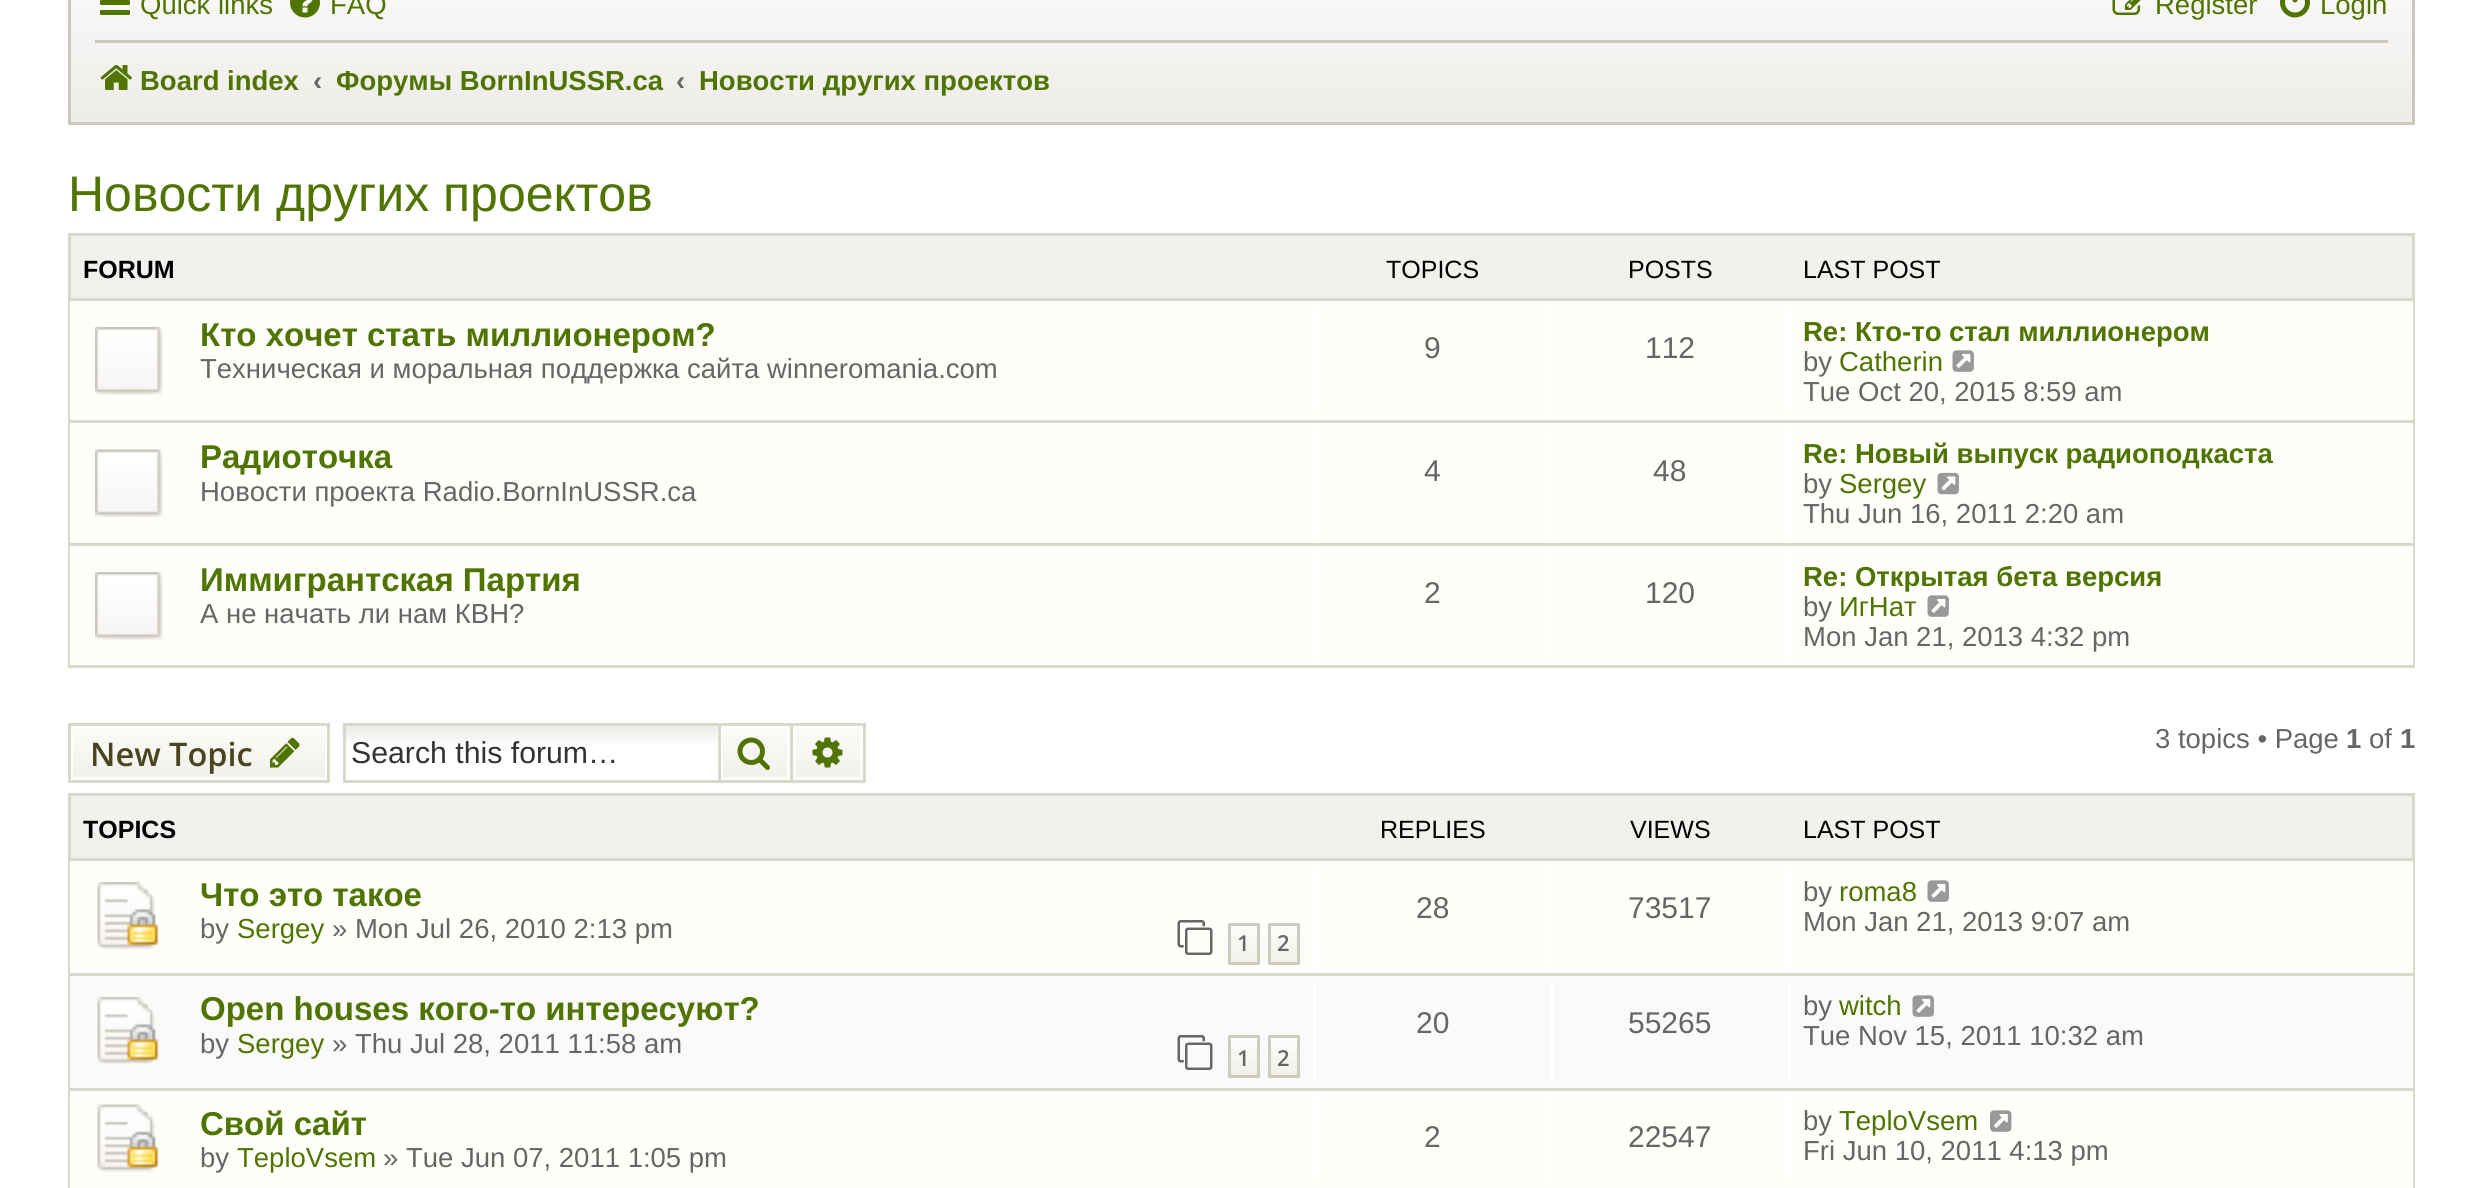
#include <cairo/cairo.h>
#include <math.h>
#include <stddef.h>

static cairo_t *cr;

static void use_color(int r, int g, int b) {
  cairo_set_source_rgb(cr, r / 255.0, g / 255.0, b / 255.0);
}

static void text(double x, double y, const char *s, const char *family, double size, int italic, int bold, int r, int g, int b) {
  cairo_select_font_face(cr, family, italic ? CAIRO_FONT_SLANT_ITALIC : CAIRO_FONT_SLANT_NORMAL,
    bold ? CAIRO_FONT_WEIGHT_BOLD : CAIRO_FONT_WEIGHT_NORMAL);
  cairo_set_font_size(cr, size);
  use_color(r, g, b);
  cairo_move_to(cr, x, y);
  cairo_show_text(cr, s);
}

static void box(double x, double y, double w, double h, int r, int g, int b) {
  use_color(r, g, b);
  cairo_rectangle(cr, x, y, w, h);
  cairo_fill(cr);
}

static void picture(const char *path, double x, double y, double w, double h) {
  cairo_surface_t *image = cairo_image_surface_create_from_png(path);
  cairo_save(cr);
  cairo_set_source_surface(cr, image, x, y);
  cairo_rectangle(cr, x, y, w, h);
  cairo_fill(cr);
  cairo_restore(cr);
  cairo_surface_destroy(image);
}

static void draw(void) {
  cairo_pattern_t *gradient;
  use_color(255, 255, 255);
  cairo_paint(cr);
  gradient = cairo_pattern_create_linear(1241, -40, 1241, 123);
  cairo_pattern_add_color_stop_rgba(gradient, 0, 0.984, 0.984, 0.984, 1);
  cairo_pattern_add_color_stop_rgba(gradient, 1, 0.933, 0.925, 0.91, 1);
  cairo_set_source(cr, gradient);
  cairo_pattern_destroy(gradient);
  cairo_rectangle(cr, 71, 0, 2341, 122);
  cairo_fill(cr);
  cairo_rectangle(cr, 69.5, -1.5, 2344, 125);
  use_color(206, 199, 189);
  cairo_set_line_width(cr, 3);
  cairo_stroke(cr);
  picture("img_01.png", 100, 0, 30, 15);
  picture("img_02.png", 290, 0, 30, 18);
  picture("img_03.png", 2112, 0, 29, 15);
  picture("img_04.png", 2280, 0, 30, 18);
  box(95, 40, 2293, 3, 206, 199, 189);
  picture("img_05.png", 100, 64, 32, 26);
  gradient = cairo_pattern_create_linear(1241, 235, 1241, 665);
  cairo_pattern_add_color_stop_rgba(gradient, 0, 0.949, 0.945, 0.933, 1);
  cairo_pattern_add_color_stop_rgba(gradient, 1, 0.929, 0.922, 0.906, 1);
  cairo_set_source(cr, gradient);
  cairo_pattern_destroy(gradient);
  cairo_rectangle(cr, 71, 236, 2341, 62);
  cairo_fill(cr);
  cairo_rectangle(cr, 69.5, 234.5, 2344, 432);
  use_color(218, 215, 203);
  cairo_stroke(cr);
  box(70, 301, 2343, 364, 254, 254, 250);
  box(70, 298, 2343, 3, 218, 215, 203);
  picture("img_06.png", 95, 327, 68, 68);
  box(1313, 305, 3, 110, 255, 255, 255);
  box(1550, 305, 3, 110, 255, 255, 255);
  box(1788, 305, 3, 110, 255, 255, 255);
  picture("img_07.png", 1952, 350, 22, 22);
  box(70, 420, 2343, 3, 218, 215, 203);
  picture("img_08.png", 95, 449, 68, 68);
  box(1313, 428, 3, 110, 255, 255, 255);
  box(1550, 428, 3, 110, 255, 255, 255);
  box(1788, 428, 3, 110, 255, 255, 255);
  picture("img_09.png", 1937, 472, 22, 23);
  box(70, 543, 2343, 3, 218, 215, 203);
  picture("img_06.png", 95, 572, 68, 68);
  box(1313, 550, 3, 110, 255, 255, 255);
  box(1550, 550, 3, 110, 255, 255, 255);
  box(1788, 550, 3, 110, 255, 255, 255);
  picture("img_07.png", 1927, 595, 22, 22);
  gradient = cairo_pattern_create_linear(199, 725, 199, 780);
  cairo_pattern_add_color_stop_rgba(gradient, 0, 0.988, 0.988, 0.98, 1);
  cairo_pattern_add_color_stop_rgba(gradient, 1, 0.945, 0.941, 0.918, 1);
  cairo_set_source(cr, gradient);
  cairo_pattern_destroy(gradient);
  cairo_rectangle(cr, 73, 728, 252, 49);
  cairo_fill(cr);
  cairo_rectangle(cr, 71.5, 726.5, 255, 52);
  use_color(254, 254, 252);
  cairo_stroke(cr);
  cairo_rectangle(cr, 69.5, 724.5, 259, 57);
  use_color(218, 215, 203);
  cairo_stroke(cr);
  picture("img_10.png", 270, 737, 30, 31);
  picture("img_11.png", 342, 724, 376, 21);
  box(343, 723, 375, 3, 218, 215, 203);
  box(343, 780, 375, 3, 218, 215, 203);
  box(343, 723, 3, 60, 218, 215, 203);
  gradient = cairo_pattern_create_linear(755, 725, 755, 780);
  cairo_pattern_add_color_stop_rgba(gradient, 0, 0.988, 0.988, 0.98, 1);
  cairo_pattern_add_color_stop_rgba(gradient, 1, 0.945, 0.941, 0.918, 1);
  cairo_set_source(cr, gradient);
  cairo_pattern_destroy(gradient);
  cairo_rectangle(cr, 723, 728, 64, 49);
  cairo_fill(cr);
  cairo_rectangle(cr, 721.5, 726.5, 67, 52);
  use_color(254, 254, 252);
  cairo_stroke(cr);
  cairo_rectangle(cr, 719.5, 724.5, 72, 57);
  use_color(218, 215, 203);
  cairo_stroke(cr);
  picture("img_12.png", 737, 737, 33, 33);
  gradient = cairo_pattern_create_linear(828, 725, 828, 780);
  cairo_pattern_add_color_stop_rgba(gradient, 0, 0.988, 0.988, 0.98, 1);
  cairo_pattern_add_color_stop_rgba(gradient, 1, 0.945, 0.941, 0.918, 1);
  cairo_set_source(cr, gradient);
  cairo_pattern_destroy(gradient);
  cairo_rectangle(cr, 796, 728, 64, 49);
  cairo_fill(cr);
  cairo_rectangle(cr, 794.5, 726.5, 67, 52);
  use_color(254, 254, 252);
  cairo_stroke(cr);
  box(793, 723, 72, 3, 218, 215, 203);
  box(863, 723, 3, 60, 218, 215, 203);
  box(793, 780, 72, 3, 218, 215, 203);
  picture("img_13.png", 812, 737, 31, 31);
  gradient = cairo_pattern_create_linear(1241, 795, 1241, 1188);
  cairo_pattern_add_color_stop_rgba(gradient, 0, 0.949, 0.945, 0.933, 1);
  cairo_pattern_add_color_stop_rgba(gradient, 1, 0.929, 0.922, 0.906, 1);
  cairo_set_source(cr, gradient);
  cairo_pattern_destroy(gradient);
  cairo_rectangle(cr, 71, 796, 2341, 62);
  cairo_fill(cr);
  cairo_rectangle(cr, 69.5, 794.5, 2344, 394);
  use_color(218, 215, 203);
  cairo_stroke(cr);
  box(70, 861, 2343, 112, 254, 254, 250);
  box(70, 858, 2343, 3, 218, 215, 203);
  picture("img_14.png", 97, 882, 62, 68);
  picture("img_15.png", 1177, 920, 36, 35);
  gradient = cairo_pattern_create_linear(1244, 925, 1244, 963);
  cairo_pattern_add_color_stop_rgba(gradient, 0, 0.988, 0.988, 0.98, 1);
  cairo_pattern_add_color_stop_rgba(gradient, 1, 0.945, 0.941, 0.918, 1);
  cairo_set_source(cr, gradient);
  cairo_pattern_destroy(gradient);
  cairo_rectangle(cr, 1231, 927, 26, 35);
  cairo_fill(cr);
  cairo_rectangle(cr, 1229.5, 924.5, 29, 39);
  use_color(207, 203, 190);
  cairo_stroke(cr);
  gradient = cairo_pattern_create_linear(1284, 925, 1284, 963);
  cairo_pattern_add_color_stop_rgba(gradient, 0, 0.988, 0.988, 0.98, 1);
  cairo_pattern_add_color_stop_rgba(gradient, 1, 0.945, 0.941, 0.918, 1);
  cairo_set_source(cr, gradient);
  cairo_pattern_destroy(gradient);
  cairo_rectangle(cr, 1271, 927, 26, 35);
  cairo_fill(cr);
  cairo_rectangle(cr, 1269.5, 924.5, 29, 39);
  use_color(207, 203, 190);
  cairo_stroke(cr);
  box(1313, 865, 3, 103, 255, 255, 255);
  box(1550, 865, 3, 103, 255, 255, 255);
  box(1788, 865, 3, 103, 255, 255, 255);
  picture("img_07.png", 1927, 880, 22, 22);
  box(70, 976, 2343, 112, 250, 250, 248);
  box(70, 973, 2343, 3, 218, 215, 203);
  picture("img_16.png", 97, 997, 62, 68);
  picture("img_17.png", 1177, 1035, 36, 35);
  gradient = cairo_pattern_create_linear(1244, 1038, 1244, 1075);
  cairo_pattern_add_color_stop_rgba(gradient, 0, 0.988, 0.988, 0.98, 1);
  cairo_pattern_add_color_stop_rgba(gradient, 1, 0.945, 0.941, 0.918, 1);
  cairo_set_source(cr, gradient);
  cairo_pattern_destroy(gradient);
  cairo_rectangle(cr, 1231, 1048, 26, 27);
  cairo_fill(cr);
  cairo_rectangle(cr, 1229.5, 1036.5, 29, 40);
  use_color(207, 203, 190);
  cairo_stroke(cr);
  gradient = cairo_pattern_create_linear(1284, 1038, 1284, 1075);
  cairo_pattern_add_color_stop_rgba(gradient, 0, 0.988, 0.988, 0.98, 1);
  cairo_pattern_add_color_stop_rgba(gradient, 1, 0.945, 0.941, 0.918, 1);
  cairo_set_source(cr, gradient);
  cairo_pattern_destroy(gradient);
  cairo_rectangle(cr, 1271, 1048, 26, 27);
  cairo_fill(cr);
  cairo_rectangle(cr, 1269.5, 1036.5, 29, 40);
  use_color(207, 203, 190);
  cairo_stroke(cr);
  box(1313, 980, 3, 103, 255, 255, 255);
  box(1550, 980, 3, 103, 255, 255, 255);
  box(1788, 980, 3, 103, 255, 255, 255);
  picture("img_18.png", 1912, 995, 22, 22);
  box(70, 1091, 2343, 97, 254, 254, 250);
  box(70, 1088, 2343, 3, 218, 215, 203);
  picture("img_19.png", 97, 1104, 62, 68);
  box(1313, 1095, 3, 88, 255, 255, 255);
  box(1550, 1095, 3, 88, 255, 255, 255);
  box(1788, 1095, 3, 88, 255, 255, 255);
  picture("img_20.png", 1990, 1110, 22, 22);
  text(140, 14, "Quick links", "Liberation Sans", 27.5, 0, 0, 79, 117, 0);
  text(330, 14, "FAQ", "Liberation Sans", 27.5, 0, 0, 79, 117, 0);
  text(2155, 14, "Register", "Liberation Sans", 27.5, 0, 0, 79, 117, 0);
  text(2320, 14, "Login", "Liberation Sans", 27.5, 0, 0, 79, 117, 0);
  text(140, 90, "Board index", "Liberation Sans", 27.5, 0, 1, 79, 117, 0);
  text(313, 90, "‹", "Liberation Sans", 27.5, 0, 1, 102, 102, 102);
  text(336, 90, "Форумы BornInUSSR.ca", "Liberation Sans", 27.5, 0, 1, 79, 117, 0);
  text(676, 90, "‹", "Liberation Sans", 27.5, 0, 1, 102, 102, 102);
  text(699, 90, "Новости других проектов", "Liberation Sans", 27.5, 0, 1, 79, 117, 0);
  text(68, 211, "Новости других проектов", "Liberation Sans", 50, 0, 0, 79, 117, 0);
  text(83, 278, "FORUM", "Liberation Sans", 25, 0, 1, 0, 0, 0);
  text(1386, 278, "TOPICS", "Liberation Sans", 25, 0, 0, 0, 0, 0);
  text(1628, 278, "POSTS", "Liberation Sans", 25, 0, 0, 0, 0, 0);
  text(1803, 278, "LAST POST", "Liberation Sans", 25, 0, 0, 0, 0, 0);
  text(200, 346, "Кто хочет стать миллионером?", "Liberation Sans", 33, 0, 1, 79, 117, 0);
  text(200, 378, "Техническая и моральная поддержка сайта winneromania.com", "Liberation Sans", 27.5, 0, 0, 102, 102, 102);
  text(1424, 358, "9", "Liberation Sans", 30, 0, 0, 102, 102, 102);
  text(1645, 358, "112", "Liberation Sans", 30, 0, 0, 102, 102, 102);
  text(1803, 341, "Re: Кто-то стал миллионером", "Liberation Sans", 27.5, 0, 1, 79, 117, 0);
  text(1803, 371, "by", "Liberation Sans", 27.5, 0, 0, 102, 102, 102);
  text(1839, 371, "Catherin", "Liberation Sans", 27.5, 0, 0, 79, 117, 0);
  text(1803, 401, "Tue Oct 20, 2015 8:59 am", "Liberation Sans", 27.5, 0, 0, 102, 102, 102);
  text(200, 468, "Радиоточка", "Liberation Sans", 33, 0, 1, 79, 117, 0);
  text(200, 501, "Новости проекта Radio.BornInUSSR.ca", "Liberation Sans", 27.5, 0, 0, 102, 102, 102);
  text(1424, 481, "4", "Liberation Sans", 30, 0, 0, 102, 102, 102);
  text(1653, 481, "48", "Liberation Sans", 30, 0, 0, 102, 102, 102);
  text(1803, 463, "Re: Новый выпуск радиоподкаста", "Liberation Sans", 27.5, 0, 1, 79, 117, 0);
  text(1803, 493, "by", "Liberation Sans", 27.5, 0, 0, 102, 102, 102);
  text(1839, 493, "Sergey", "Liberation Sans", 27.5, 0, 0, 79, 117, 0);
  text(1803, 523, "Thu Jun 16, 2011 2:20 am", "Liberation Sans", 27.5, 0, 0, 102, 102, 102);
  text(200, 591, "Иммигрантская Партия", "Liberation Sans", 33, 0, 1, 79, 117, 0);
  text(200, 623, "А не начать ли нам КВН?", "Liberation Sans", 27.5, 0, 0, 102, 102, 102);
  text(1424, 603, "2", "Liberation Sans", 30, 0, 0, 102, 102, 102);
  text(1645, 603, "120", "Liberation Sans", 30, 0, 0, 102, 102, 102);
  text(1803, 586, "Re: Открытая бета версия", "Liberation Sans", 27.5, 0, 1, 79, 117, 0);
  text(1803, 616, "by", "Liberation Sans", 27.5, 0, 0, 102, 102, 102);
  text(1839, 616, "ИгНат", "Liberation Sans", 27.5, 0, 0, 79, 117, 0);
  text(1803, 646, "Mon Jan 21, 2013 4:32 pm", "Liberation Sans", 27.5, 0, 0, 102, 102, 102);
  text(90, 766, "New Topic", "Open Sans SemiBold", 32.5, 0, 0, 75, 68, 32);
  text(351, 763, "Search this forum…", "Liberation Sans", 30.25, 0, 0, 51, 51, 51);
  text(2155, 748, "3 topics • Page", "Liberation Sans", 27.5, 0, 0, 102, 102, 102);
  text(2346, 748, "1", "Liberation Sans", 27.5, 0, 1, 102, 102, 102);
  text(2369, 748, "of", "Liberation Sans", 27.5, 0, 0, 102, 102, 102);
  text(2400, 748, "1", "Liberation Sans", 27.5, 0, 1, 102, 102, 102);
  text(83, 838, "TOPICS", "Liberation Sans", 25, 0, 1, 0, 0, 0);
  text(1380, 838, "REPLIES", "Liberation Sans", 25, 0, 0, 0, 0, 0);
  text(1630, 838, "VIEWS", "Liberation Sans", 25, 0, 0, 0, 0, 0);
  text(1803, 838, "LAST POST", "Liberation Sans", 25, 0, 0, 0, 0, 0);
  text(200, 906, "Что это такое", "Liberation Sans", 33, 0, 1, 79, 117, 0);
  text(200, 938, "by", "Liberation Sans", 27.5, 0, 0, 102, 102, 102);
  text(237, 938, "Sergey", "Liberation Sans", 27.5, 0, 0, 79, 117, 0);
  text(332, 938, "» Mon Jul 26, 2010 2:13 pm", "Liberation Sans", 27.5, 0, 0, 102, 102, 102);
  text(1237, 951, "1", "Open Sans SemiBold", 22, 0, 0, 102, 102, 102);
  text(1277, 951, "2", "Open Sans SemiBold", 22, 0, 0, 102, 102, 102);
  text(1416, 918, "28", "Liberation Sans", 30, 0, 0, 102, 102, 102);
  text(1628, 918, "73517", "Liberation Sans", 30, 0, 0, 102, 102, 102);
  text(1803, 901, "by", "Liberation Sans", 27.5, 0, 0, 102, 102, 102);
  text(1839, 901, "roma8", "Liberation Sans", 27.5, 0, 0, 79, 117, 0);
  text(1803, 931, "Mon Jan 21, 2013 9:07 am", "Liberation Sans", 27.5, 0, 0, 102, 102, 102);
  text(200, 1020, "Open houses кого-то интересуют?", "Liberation Sans", 33, 0, 1, 79, 117, 0);
  text(200, 1053, "by", "Liberation Sans", 27.5, 0, 0, 102, 102, 102);
  text(237, 1053, "Sergey", "Liberation Sans", 27.5, 0, 0, 79, 117, 0);
  text(332, 1053, "» Thu Jul 28, 2011 11:58 am", "Liberation Sans", 27.5, 0, 0, 102, 102, 102);
  text(1237, 1066, "1", "Open Sans SemiBold", 22, 0, 0, 102, 102, 102);
  text(1277, 1066, "2", "Open Sans SemiBold", 22, 0, 0, 102, 102, 102);
  text(1416, 1033, "20", "Liberation Sans", 30, 0, 0, 102, 102, 102);
  text(1628, 1033, "55265", "Liberation Sans", 30, 0, 0, 102, 102, 102);
  text(1803, 1015, "by", "Liberation Sans", 27.5, 0, 0, 102, 102, 102);
  text(1839, 1015, "witch", "Liberation Sans", 27.5, 0, 0, 79, 117, 0);
  text(1803, 1045, "Tue Nov 15, 2011 10:32 am", "Liberation Sans", 27.5, 0, 0, 102, 102, 102);
  text(200, 1135, "Свой сайт", "Liberation Sans", 33, 0, 1, 79, 117, 0);
  text(200, 1167, "by", "Liberation Sans", 27.5, 0, 0, 102, 102, 102);
  text(237, 1167, "TeploVsem", "Liberation Sans", 27.5, 0, 0, 79, 117, 0);
  text(383, 1167, "» Tue Jun 07, 2011 1:05 pm", "Liberation Sans", 27.5, 0, 0, 102, 102, 102);
  text(1424, 1147, "2", "Liberation Sans", 30, 0, 0, 102, 102, 102);
  text(1628, 1147, "22547", "Liberation Sans", 30, 0, 0, 102, 102, 102);
  text(1803, 1130, "by", "Liberation Sans", 27.5, 0, 0, 102, 102, 102);
  text(1839, 1130, "TeploVsem", "Liberation Sans", 27.5, 0, 0, 79, 117, 0);
  text(1803, 1160, "Fri Jun 10, 2011 4:13 pm", "Liberation Sans", 27.5, 0, 0, 102, 102, 102);
}

int main(void) {
  cairo_surface_t *surface = cairo_image_surface_create(CAIRO_FORMAT_RGB24, 2481, 1188);
  cr = cairo_create(surface);
  cairo_font_options_t *options = cairo_font_options_create();
  cairo_font_options_set_hint_metrics(options, CAIRO_HINT_METRICS_OFF);
  cairo_font_options_set_hint_style(options, CAIRO_HINT_STYLE_NONE);
  cairo_set_font_options(cr, options);
  cairo_set_miter_limit(cr, 4);
  draw();
  cairo_surface_write_to_png(surface, "out.png");
  cairo_font_options_destroy(options);
  cairo_destroy(cr);
  cairo_surface_destroy(surface);
  return 0;
}
